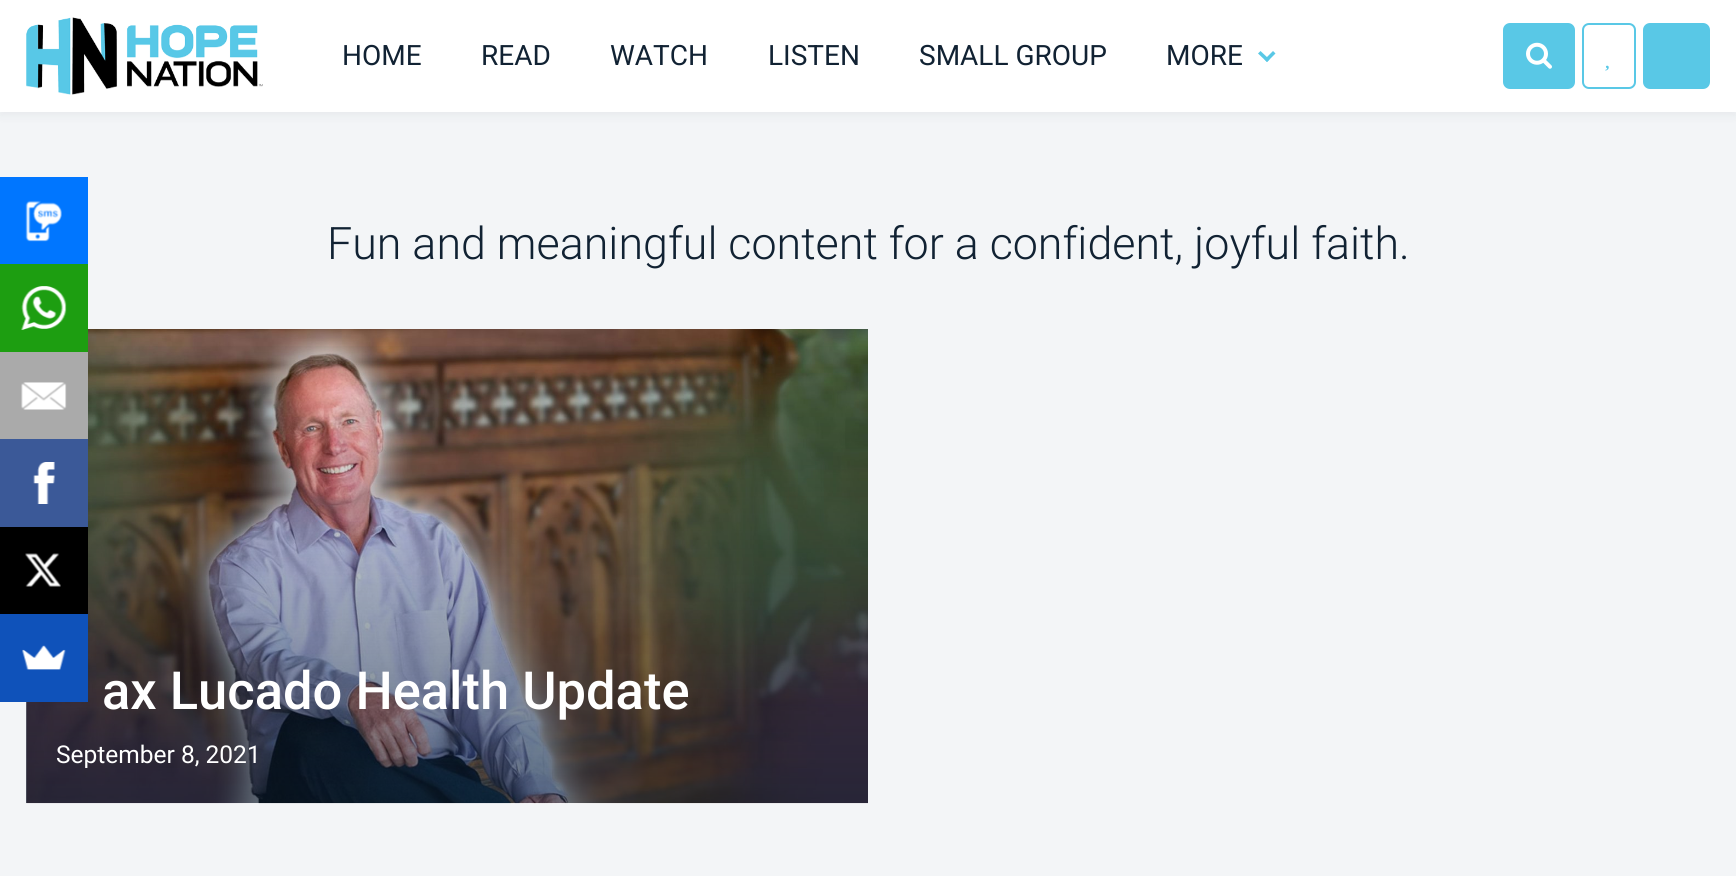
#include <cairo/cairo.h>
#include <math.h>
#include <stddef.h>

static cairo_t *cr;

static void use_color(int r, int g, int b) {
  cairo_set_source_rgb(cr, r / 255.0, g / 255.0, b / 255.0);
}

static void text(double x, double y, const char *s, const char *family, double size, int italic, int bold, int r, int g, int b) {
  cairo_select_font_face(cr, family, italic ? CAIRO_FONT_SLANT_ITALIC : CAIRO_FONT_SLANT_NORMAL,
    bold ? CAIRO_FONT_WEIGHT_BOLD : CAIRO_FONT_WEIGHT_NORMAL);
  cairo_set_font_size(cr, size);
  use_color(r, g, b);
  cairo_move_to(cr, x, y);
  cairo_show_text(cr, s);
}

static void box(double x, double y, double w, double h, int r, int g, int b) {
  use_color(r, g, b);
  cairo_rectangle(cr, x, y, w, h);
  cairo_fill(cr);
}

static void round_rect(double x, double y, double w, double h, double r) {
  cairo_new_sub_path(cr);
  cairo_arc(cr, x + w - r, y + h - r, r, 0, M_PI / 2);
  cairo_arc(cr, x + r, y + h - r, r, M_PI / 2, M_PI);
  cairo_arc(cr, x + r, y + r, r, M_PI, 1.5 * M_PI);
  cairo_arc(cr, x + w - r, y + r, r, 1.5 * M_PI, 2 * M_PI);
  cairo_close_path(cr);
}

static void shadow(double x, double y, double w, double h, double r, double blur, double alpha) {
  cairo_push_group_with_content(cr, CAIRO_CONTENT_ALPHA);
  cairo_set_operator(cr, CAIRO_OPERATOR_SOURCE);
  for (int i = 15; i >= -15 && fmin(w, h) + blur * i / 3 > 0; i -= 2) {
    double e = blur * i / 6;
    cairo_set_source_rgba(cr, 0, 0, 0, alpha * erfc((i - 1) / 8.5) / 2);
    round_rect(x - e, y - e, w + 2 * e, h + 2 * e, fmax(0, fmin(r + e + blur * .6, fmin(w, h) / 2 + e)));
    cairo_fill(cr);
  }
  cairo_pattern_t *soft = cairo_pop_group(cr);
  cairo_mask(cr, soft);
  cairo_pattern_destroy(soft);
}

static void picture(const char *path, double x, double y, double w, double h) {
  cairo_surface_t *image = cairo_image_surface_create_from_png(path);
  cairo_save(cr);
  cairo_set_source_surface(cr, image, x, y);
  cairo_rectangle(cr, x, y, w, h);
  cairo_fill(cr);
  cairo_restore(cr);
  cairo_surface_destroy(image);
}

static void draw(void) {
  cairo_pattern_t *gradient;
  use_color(243, 245, 247);
  cairo_paint(cr);
  box(0, 177, 88, 87, 0, 118, 255);
  picture("img_01.png", 25, 200, 37, 42);
  picture("img_10.png", 26, 329, 842, 475);
  gradient = cairo_pattern_create_linear(447, 329, 447, 803);
  cairo_pattern_add_color_stop_rgba(gradient, 0, 0.047, 0.118, 0.192, 0);
  cairo_pattern_add_color_stop_rgba(gradient, 0.99, 0.047, 0.118, 0.192, 0.6);
  cairo_set_source(cr, gradient);
  cairo_pattern_destroy(gradient);
  cairo_rectangle(cr, 26, 346, 842, 457);
  cairo_fill(cr);
  box(0, 264, 88, 88, 29, 158, 17);
  picture("img_02.png", 21, 286, 46, 44);
  box(0, 352, 88, 87, 170, 170, 170);
  picture("img_03.png", 21, 382, 46, 28);
  box(0, 439, 88, 88, 59, 89, 152);
  picture("img_04.png", 33, 462, 22, 42);
  box(0, 527, 88, 87, 0, 0, 0);
  picture("img_05.png", 25, 553, 36, 34);
  box(0, 614, 88, 88, 15, 82, 186);
  picture("img_06.png", 22, 645, 44, 25);
  use_color(17, 34, 51);
  shadow(0, 4, 1736, 112, 0, 4.5, 0.05);
  box(0, 0, 1736, 112, 255, 255, 255);
  picture("img_07.png", 26, 17, 237, 78);
  use_color(89, 200, 230);
  cairo_new_path(cr);
  cairo_move_to(cr, 1275.5, 53.5);
  cairo_line_to(cr, 1267, 62);
  cairo_line_to(cr, 1264.5, 59.5);
  cairo_line_to(cr, 1273, 51);
  cairo_close_path(cr);
  cairo_fill(cr);
  cairo_new_path(cr);
  cairo_move_to(cr, 1269.5, 59.5);
  cairo_line_to(cr, 1267, 62);
  cairo_line_to(cr, 1258, 53.5);
  cairo_line_to(cr, 1260.5, 51);
  cairo_close_path(cr);
  cairo_fill(cr);
  round_rect(1504, 24, 70, 64, 6);
  cairo_fill_preserve(cr);
  cairo_stroke(cr);
  picture("img_08.png", 1526, 42, 26, 27);
  round_rect(1583, 24, 52, 64, 6);
  cairo_stroke(cr);
  picture("img_09.png", 1605, 65, 4, 6);
  round_rect(1644, 24, 65, 64, 6);
  cairo_fill_preserve(cr);
  cairo_stroke(cr);
  text(342, 65, "HOME", "Roboto", 28, 0, 0, 17, 34, 51);
  text(481, 65, "READ", "Roboto", 28, 0, 0, 17, 34, 51);
  text(610, 65, "WATCH", "Roboto", 28, 0, 0, 17, 34, 51);
  text(768, 65, "LISTEN", "Roboto", 28, 0, 0, 17, 34, 51);
  text(919, 65, "SMALL GROUP", "Roboto", 28, 0, 0, 17, 34, 51);
  text(1166, 65, "MORE", "Roboto", 28, 0, 0, 17, 34, 51);
  text(327, 259, "Fun and meaningful content for a confident, joyful faith.", "Roboto Light", 44.8, 0, 0, 17, 34, 51);
  text(102, 709, "ax Lucado Health Update", "Roboto Medium", 52.5, 0, 0, 255, 255, 255);
  text(56, 763, "September 8, 2021", "Roboto", 24.5, 0, 0, 255, 255, 255);
}

int main(void) {
  cairo_surface_t *surface = cairo_image_surface_create(CAIRO_FORMAT_RGB24, 1736, 876);
  cr = cairo_create(surface);
  cairo_font_options_t *options = cairo_font_options_create();
  cairo_font_options_set_hint_metrics(options, CAIRO_HINT_METRICS_OFF);
  cairo_font_options_set_hint_style(options, CAIRO_HINT_STYLE_NONE);
  cairo_set_font_options(cr, options);
  cairo_set_miter_limit(cr, 4);
  draw();
  cairo_surface_write_to_png(surface, "out.png");
  cairo_font_options_destroy(options);
  cairo_destroy(cr);
  cairo_surface_destroy(surface);
  return 0;
}
